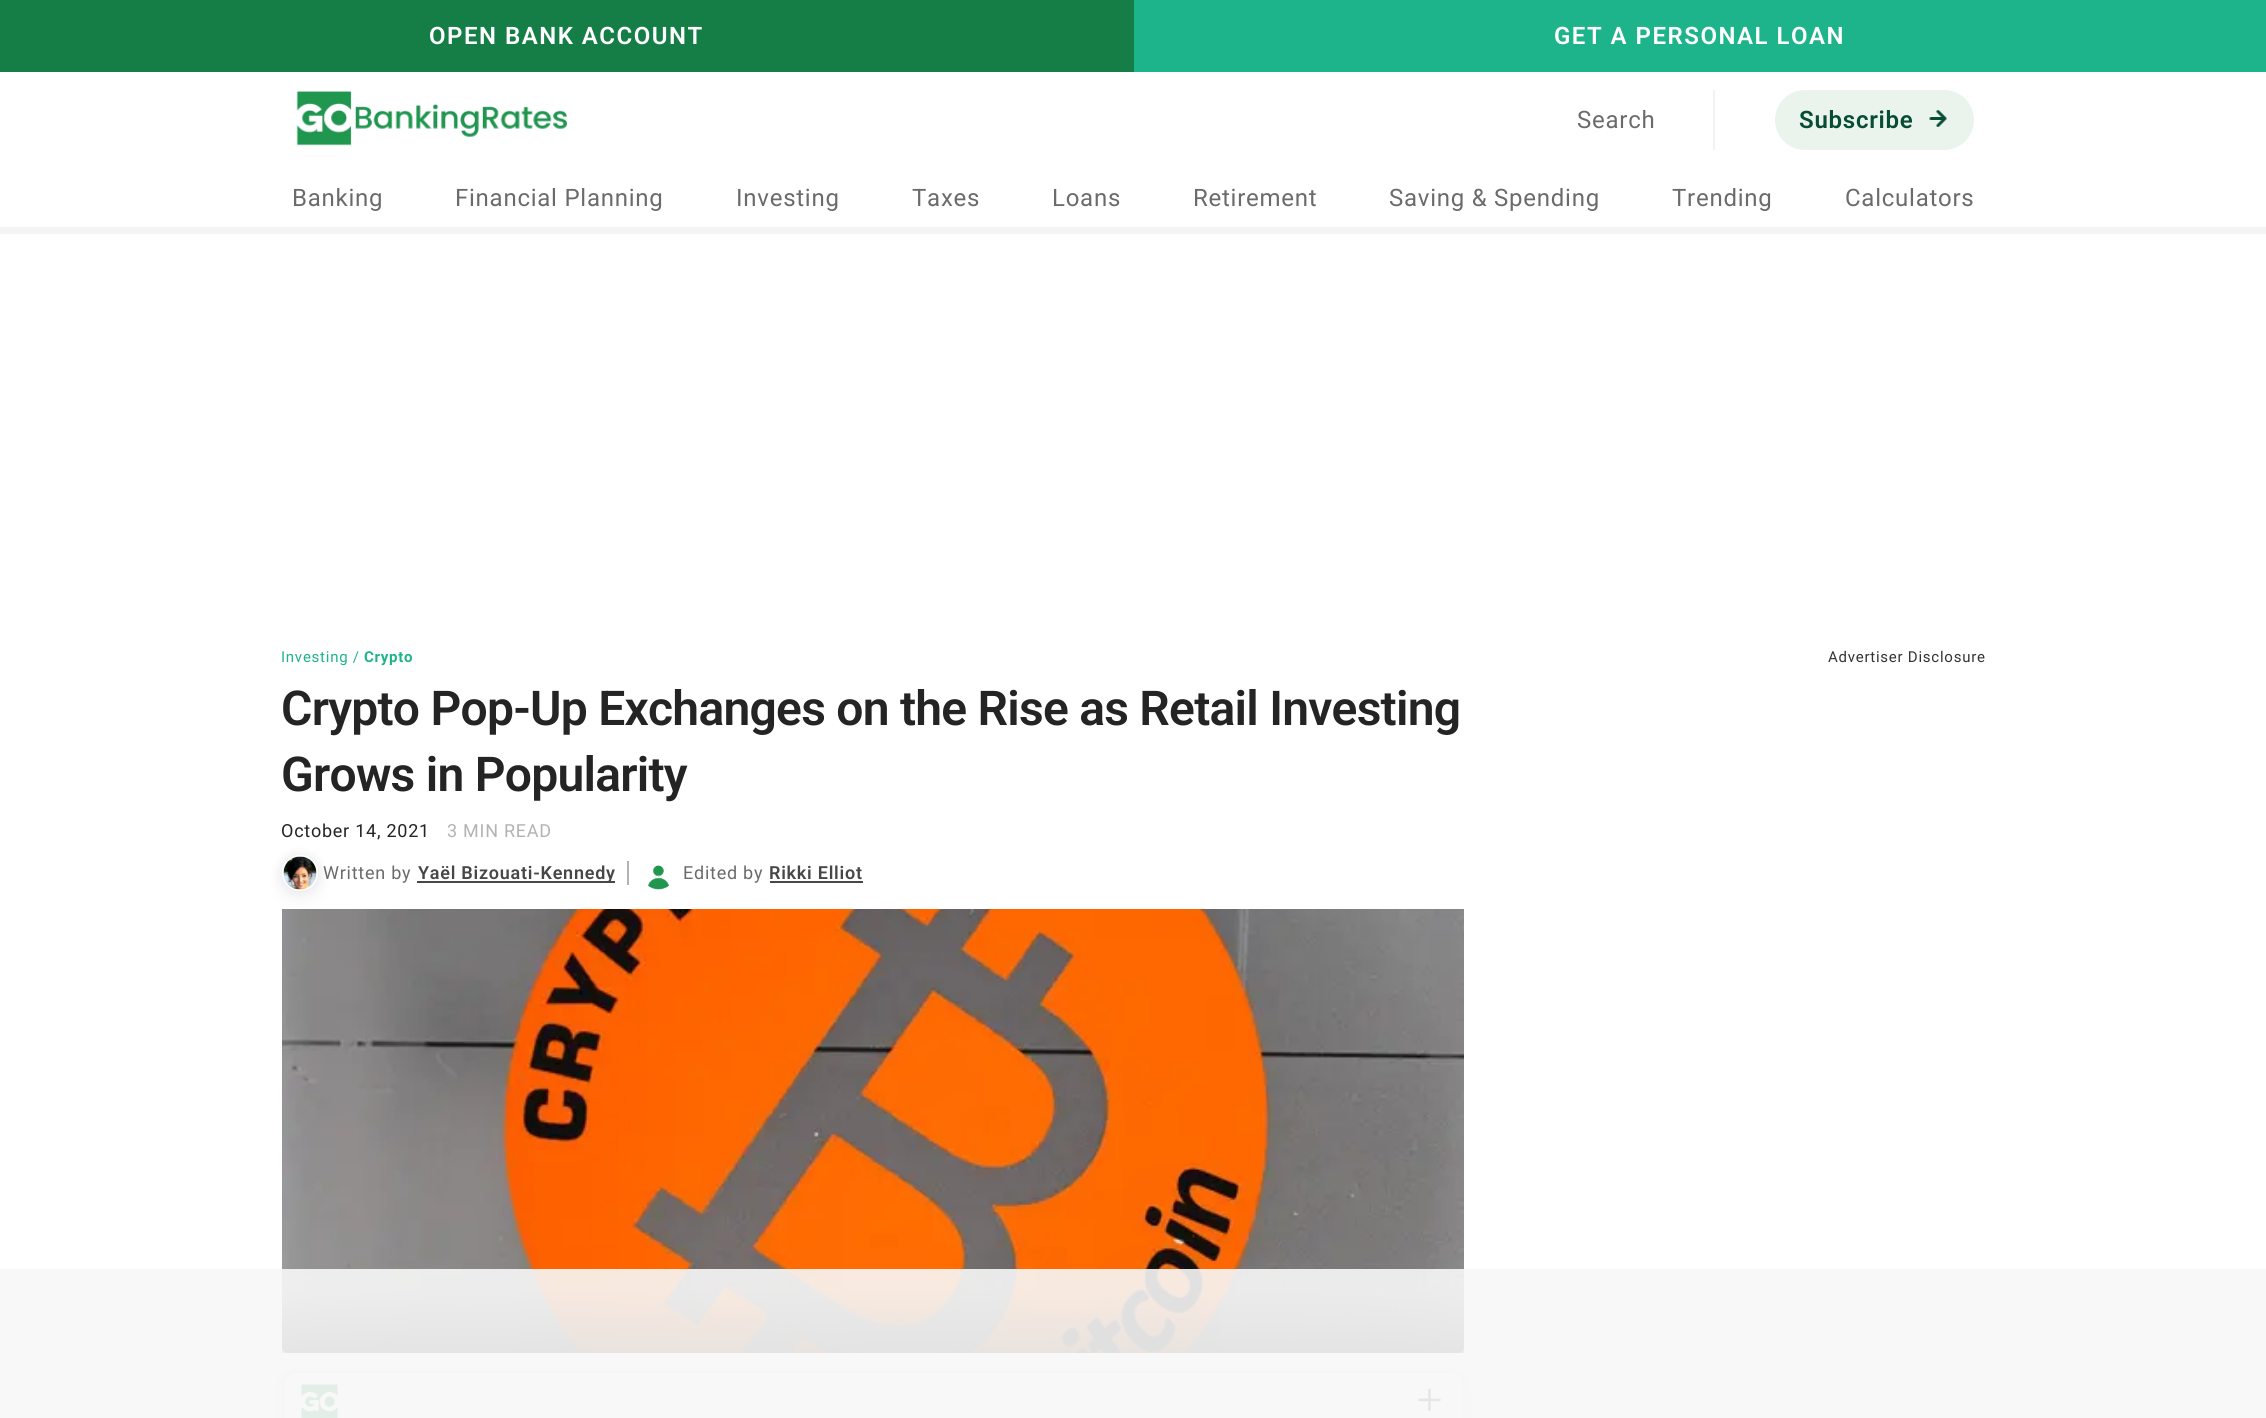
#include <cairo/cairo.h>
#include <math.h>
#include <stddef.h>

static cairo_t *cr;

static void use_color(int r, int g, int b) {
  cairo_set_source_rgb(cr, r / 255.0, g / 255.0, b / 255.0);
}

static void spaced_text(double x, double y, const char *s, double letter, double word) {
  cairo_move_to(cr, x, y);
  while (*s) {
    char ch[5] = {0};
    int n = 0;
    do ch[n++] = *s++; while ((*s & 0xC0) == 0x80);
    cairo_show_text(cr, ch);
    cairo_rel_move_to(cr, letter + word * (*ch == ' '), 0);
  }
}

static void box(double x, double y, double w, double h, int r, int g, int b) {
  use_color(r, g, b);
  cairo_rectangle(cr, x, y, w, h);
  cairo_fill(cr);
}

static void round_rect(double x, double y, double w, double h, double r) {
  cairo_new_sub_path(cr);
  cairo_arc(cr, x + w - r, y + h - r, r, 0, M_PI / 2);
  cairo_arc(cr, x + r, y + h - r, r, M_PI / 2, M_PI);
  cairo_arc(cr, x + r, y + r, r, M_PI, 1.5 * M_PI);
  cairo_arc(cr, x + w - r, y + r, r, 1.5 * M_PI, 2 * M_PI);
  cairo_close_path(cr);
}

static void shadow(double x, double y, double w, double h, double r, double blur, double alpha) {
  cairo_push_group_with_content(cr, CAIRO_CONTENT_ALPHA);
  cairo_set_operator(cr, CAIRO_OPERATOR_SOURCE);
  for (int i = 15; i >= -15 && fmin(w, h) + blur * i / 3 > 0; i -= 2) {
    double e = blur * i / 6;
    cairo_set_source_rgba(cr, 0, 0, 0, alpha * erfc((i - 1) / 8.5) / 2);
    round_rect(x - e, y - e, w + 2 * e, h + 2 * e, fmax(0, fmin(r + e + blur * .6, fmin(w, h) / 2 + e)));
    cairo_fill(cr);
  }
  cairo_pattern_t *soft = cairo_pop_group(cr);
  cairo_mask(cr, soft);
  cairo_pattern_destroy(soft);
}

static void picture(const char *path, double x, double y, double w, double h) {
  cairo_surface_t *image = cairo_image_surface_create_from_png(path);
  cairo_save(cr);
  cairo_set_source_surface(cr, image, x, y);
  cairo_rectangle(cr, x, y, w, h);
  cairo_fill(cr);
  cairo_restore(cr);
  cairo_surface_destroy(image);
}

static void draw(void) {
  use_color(255, 255, 255);
  cairo_paint(cr);
  box(0, 0, 1134, 72, 21, 126, 71);
  box(1134, 0, 1132, 72, 29, 179, 139);
  picture("img_01.png", 296, 91, 271, 55);
  box(1713, 90, 2, 60, 242, 242, 242);
  use_color(235, 244, 236);
  round_rect(1775, 90, 199, 60, 30);
  cairo_fill(cr);
  picture("img_02.png", 1929, 110, 18, 17);
  box(0, 227, 2266, 1, 242, 242, 242);
  box(0, 228, 2266, 6, 244, 244, 244);
  use_color(66, 76, 95);
  shadow(282, 855, 36, 36, 18, 6, 0.08);
  shadow(282, 861, 36, 36, 18, 9, 0.08);
  cairo_arc(cr, 300, 873, 17, 0, 2 * M_PI);
  use_color(255, 255, 255);
  cairo_stroke(cr);
  picture("img_03.png", 283, 856, 34, 34);
  box(417, 881, 198, 2, 71, 71, 71);
  box(627, 861, 2, 24, 179, 179, 179);
  picture("img_04.png", 648, 865, 21, 25);
  box(770, 881, 93, 2, 71, 71, 71);
  use_color(66, 76, 95);
  shadow(282, 1377, 1182, 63, 12, 9, 0.08);
  shadow(282, 1371, 1182, 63, 12, 6, 0.08);
  picture("img_05.png", 282, 909, 1182, 444);
  round_rect(283, 1372, 1180, 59, 11);
  use_color(232, 232, 232);
  cairo_stroke(cr);
  use_color(255, 255, 255);
  round_rect(284, 1373, 1179, 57, 12);
  cairo_fill(cr);
  picture("img_06.png", 301, 1384, 37, 34);
  picture("img_07.png", 1418, 1388, 23, 24);
  cairo_set_source_rgba(cr, 0.969, 0.969, 0.969, 0.9);
  cairo_rectangle(cr, 0, 1269, 2266, 149);
  cairo_fill(cr);
  cairo_select_font_face(cr, "Roboto SemiBold", CAIRO_FONT_SLANT_NORMAL, CAIRO_FONT_WEIGHT_NORMAL);
  cairo_set_font_size(cr, 24);
  use_color(255, 255, 255);
  spaced_text(429, 44, "OPEN BANK ACCOUNT", 1.5, 0);
  spaced_text(1554, 44, "GET A PERSONAL LOAN", 1.5, 0);
  cairo_select_font_face(cr, "Roboto", CAIRO_FONT_SLANT_NORMAL, CAIRO_FONT_WEIGHT_NORMAL);
  use_color(107, 107, 107);
  spaced_text(1577, 128, "Search", 0.75, 0);
  cairo_select_font_face(cr, "Roboto SemiBold", CAIRO_FONT_SLANT_NORMAL, CAIRO_FONT_WEIGHT_NORMAL);
  use_color(6, 77, 52);
  spaced_text(1799, 128, "Subscribe", 0.75, 0);
  cairo_select_font_face(cr, "Roboto", CAIRO_FONT_SLANT_NORMAL, CAIRO_FONT_WEIGHT_NORMAL);
  use_color(107, 107, 107);
  spaced_text(292, 206, "Banking", 0.75, 0);
  spaced_text(455, 206, "Financial Planning", 0.75, 0);
  spaced_text(736, 206, "Investing", 0.75, 0);
  spaced_text(912, 206, "Taxes", 0.75, 0);
  spaced_text(1052, 206, "Loans", 0.75, 0);
  spaced_text(1193, 206, "Retirement", 0.75, 0);
  spaced_text(1389, 206, "Saving & Spending", 0.75, 0);
  spaced_text(1672, 206, "Trending", 0.75, 0);
  spaced_text(1845, 206, "Calculators", 0.75, 0);
  cairo_set_font_size(cr, 15);
  use_color(29, 179, 139);
  spaced_text(281, 662, "Investing /", 0.75, 0);
  cairo_select_font_face(cr, "Roboto", CAIRO_FONT_SLANT_NORMAL, CAIRO_FONT_WEIGHT_BOLD);
  spaced_text(364, 662, "Crypto", 0.75, 0);
  cairo_select_font_face(cr, "Roboto", CAIRO_FONT_SLANT_NORMAL, CAIRO_FONT_WEIGHT_NORMAL);
  use_color(51, 51, 51);
  spaced_text(1828, 662, "Advertiser Disclosure", 0.75, 0);
  cairo_select_font_face(cr, "Roboto SemiBold", CAIRO_FONT_SLANT_NORMAL, CAIRO_FONT_WEIGHT_NORMAL);
  cairo_set_font_size(cr, 48);
  use_color(36, 36, 36);
  spaced_text(281, 725, "Crypto Pop-Up Exchanges on the Rise as Retail Investing", -0.75, 0);
  spaced_text(281, 791, "Grows in Popularity", -0.75, 0);
  cairo_select_font_face(cr, "Roboto", CAIRO_FONT_SLANT_NORMAL, CAIRO_FONT_WEIGHT_NORMAL);
  cairo_set_font_size(cr, 18);
  spaced_text(281, 837, "October 14, 2021", 0.75, 0);
  use_color(179, 179, 179);
  spaced_text(447, 837, "3 MIN READ", 0.75, 0);
  use_color(107, 107, 107);
  spaced_text(323, 879, "Written by", 0.75, 0);
  cairo_select_font_face(cr, "Roboto SemiBold", CAIRO_FONT_SLANT_NORMAL, CAIRO_FONT_WEIGHT_NORMAL);
  use_color(71, 71, 71);
  spaced_text(418, 879, "Yaël Bizouati-Kennedy", 0.75, 0);
  cairo_select_font_face(cr, "Roboto", CAIRO_FONT_SLANT_NORMAL, CAIRO_FONT_WEIGHT_NORMAL);
  use_color(107, 107, 107);
  spaced_text(683, 879, "Edited by", 0.75, 0);
  cairo_select_font_face(cr, "Roboto SemiBold", CAIRO_FONT_SLANT_NORMAL, CAIRO_FONT_WEIGHT_NORMAL);
  use_color(71, 71, 71);
  spaced_text(769, 879, "Rikki Elliot", 0.75, 0);
}

int main(void) {
  cairo_surface_t *surface = cairo_image_surface_create(CAIRO_FORMAT_RGB24, 2266, 1418);
  cr = cairo_create(surface);
  cairo_font_options_t *options = cairo_font_options_create();
  cairo_font_options_set_hint_metrics(options, CAIRO_HINT_METRICS_OFF);
  cairo_font_options_set_hint_style(options, CAIRO_HINT_STYLE_NONE);
  cairo_set_font_options(cr, options);
  cairo_set_miter_limit(cr, 4);
  draw();
  cairo_surface_write_to_png(surface, "out.png");
  cairo_font_options_destroy(options);
  cairo_destroy(cr);
  cairo_surface_destroy(surface);
  return 0;
}
